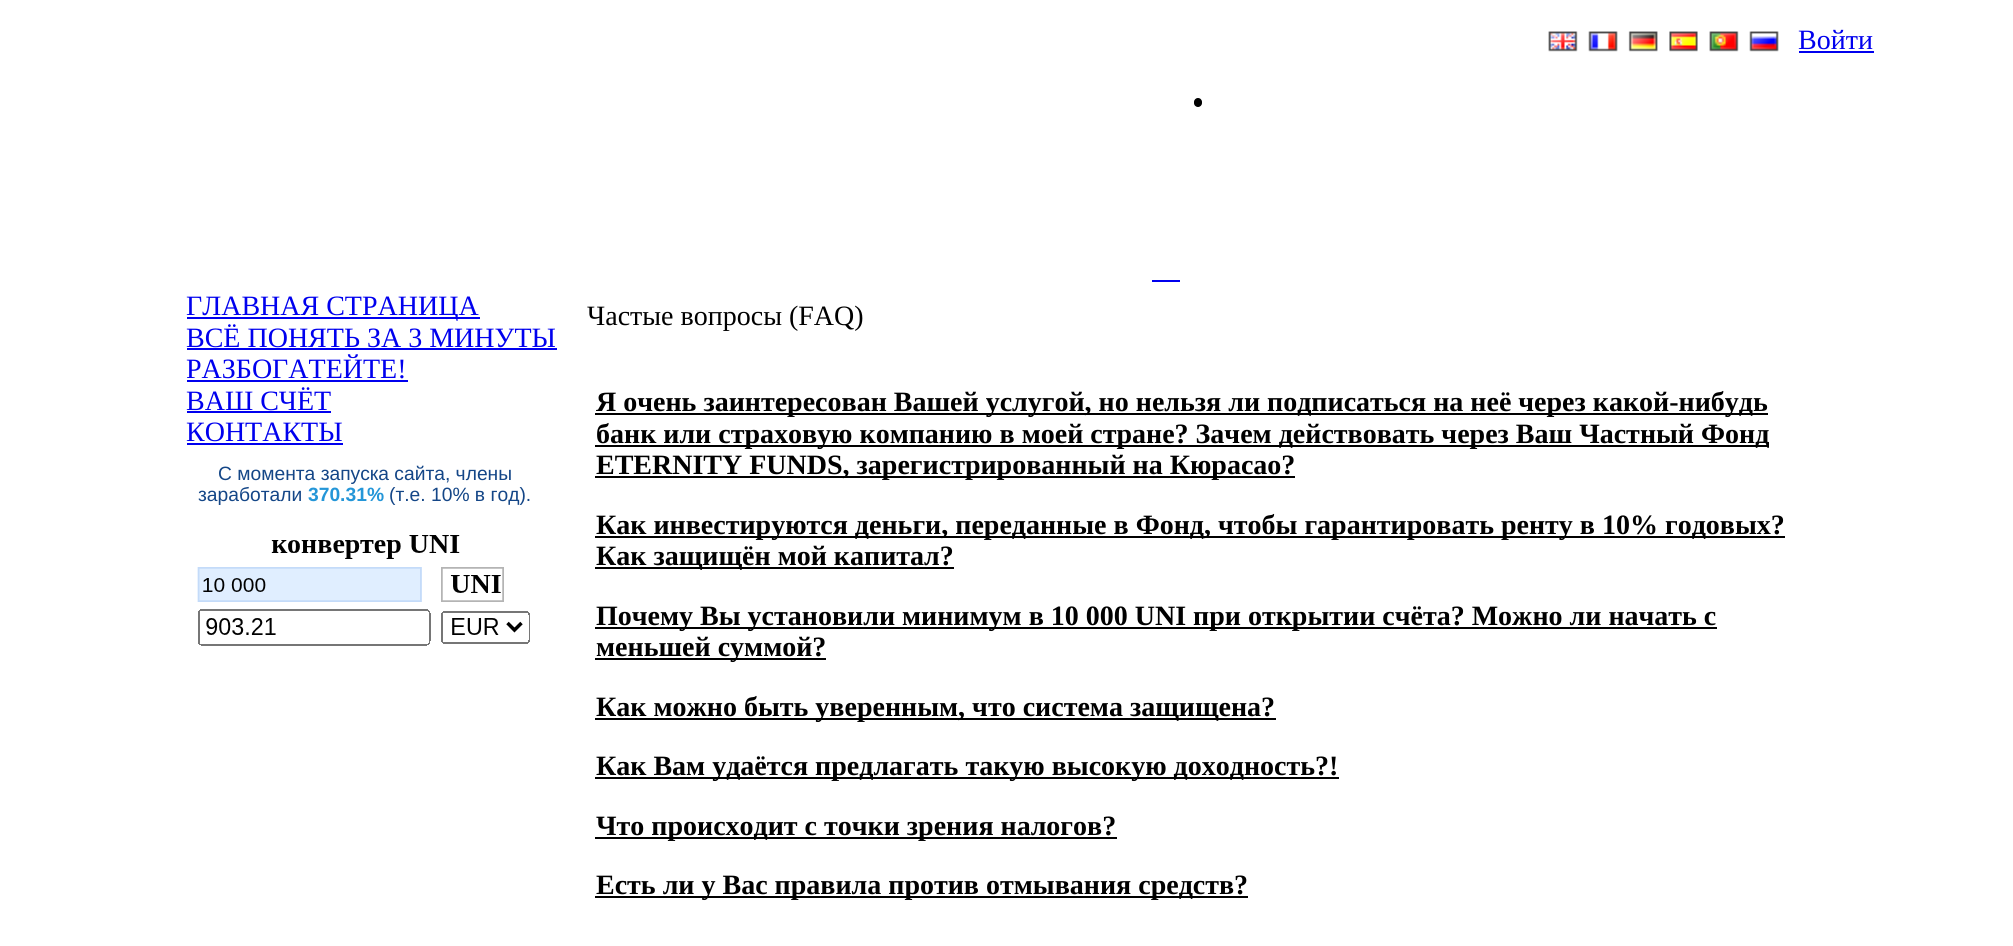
#include <cairo/cairo.h>
#include <math.h>
#include <stddef.h>

static cairo_t *cr;

static void use_color(int r, int g, int b) {
  cairo_set_source_rgb(cr, r / 255.0, g / 255.0, b / 255.0);
}

static void text(double x, double y, const char *s, const char *family, double size, int italic, int bold, int r, int g, int b) {
  cairo_select_font_face(cr, family, italic ? CAIRO_FONT_SLANT_ITALIC : CAIRO_FONT_SLANT_NORMAL,
    bold ? CAIRO_FONT_WEIGHT_BOLD : CAIRO_FONT_WEIGHT_NORMAL);
  cairo_set_font_size(cr, size);
  use_color(r, g, b);
  cairo_move_to(cr, x, y);
  cairo_show_text(cr, s);
}

static void box(double x, double y, double w, double h, int r, int g, int b) {
  use_color(r, g, b);
  cairo_rectangle(cr, x, y, w, h);
  cairo_fill(cr);
}

static void round_rect(double x, double y, double w, double h, double r) {
  cairo_new_sub_path(cr);
  cairo_arc(cr, x + w - r, y + h - r, r, 0, M_PI / 2);
  cairo_arc(cr, x + r, y + h - r, r, M_PI / 2, M_PI);
  cairo_arc(cr, x + r, y + r, r, M_PI, 1.5 * M_PI);
  cairo_arc(cr, x + w - r, y + r, r, 1.5 * M_PI, 2 * M_PI);
  cairo_close_path(cr);
}

static void picture(const char *path, double x, double y, double w, double h) {
  cairo_surface_t *image = cairo_image_surface_create_from_png(path);
  cairo_save(cr);
  cairo_set_source_surface(cr, image, x, y);
  cairo_rectangle(cr, x, y, w, h);
  cairo_fill(cr);
  cairo_restore(cr);
  cairo_surface_destroy(image);
}

static void draw(void) {
  use_color(255, 255, 255);
  cairo_paint(cr);
  picture("img_01.png", 1548, 31, 30, 21);
  picture("img_02.png", 1588, 31, 30, 21);
  picture("img_03.png", 1628, 31, 30, 21);
  picture("img_04.png", 1669, 31, 29, 21);
  picture("img_05.png", 1709, 31, 30, 21);
  picture("img_06.png", 1749, 31, 30, 21);
  box(1799, 51, 75, 2, 0, 0, 238);
  use_color(0, 0, 0);
  round_rect(1194, 98, 8, 9, 4);
  cairo_fill(cr);
  box(1152, 280, 28, 2, 0, 0, 238);
  box(187, 317, 293, 2, 0, 0, 238);
  box(187, 348, 370, 2, 0, 0, 238);
  box(187, 380, 221, 2, 0, 0, 238);
  box(187, 411, 144, 2, 0, 0, 238);
  box(187, 443, 156, 2, 0, 0, 238);
  picture("img_07.png", 197, 535, 333, 111);
  box(595, 413, 1173, 2, 0, 0, 0);
  box(595, 445, 1174, 2, 0, 0, 0);
  box(595, 476, 700, 2, 0, 0, 0);
  box(595, 536, 1190, 2, 0, 0, 0);
  box(595, 567, 359, 2, 0, 0, 0);
  box(595, 627, 1122, 2, 0, 0, 0);
  box(595, 658, 231, 2, 0, 0, 0);
  box(595, 718, 681, 2, 0, 0, 0);
  box(595, 777, 744, 2, 0, 0, 0);
  box(595, 837, 522, 2, 0, 0, 0);
  box(595, 896, 653, 2, 0, 0, 0);
  text(1798, 49, "Войти", "Liberation Serif", 28, 0, 0, 0, 0, 238);
  text(186, 315, "ГЛАВНАЯ СТРАНИЦА", "Liberation Serif", 28, 0, 0, 0, 0, 238);
  text(186, 347, "ВСЁ ПОНЯТЬ ЗА 3 МИНУТЫ", "Liberation Serif", 28, 0, 0, 0, 0, 238);
  text(186, 378, "РАЗБОГАТЕЙТЕ!", "Liberation Serif", 28, 0, 0, 0, 0, 238);
  text(186, 410, "ВАШ СЧЁТ", "Liberation Serif", 28, 0, 0, 0, 0, 238);
  text(186, 441, "КОНТАКТЫ", "Liberation Serif", 28, 0, 0, 0, 0, 238);
  text(218, 480, "С момента запуска сайта, члены", "Liberation Sans", 19.25, 0, 0, 20, 70, 135);
  text(198, 501, "заработали", "Liberation Sans", 19.25, 0, 0, 20, 70, 135);
  text(308, 501, "370.31%", "Liberation Sans", 19.25, 0, 1, 36, 150, 216);
  text(389, 501, "(т.е. 10% в год).", "Liberation Sans", 19.25, 0, 0, 20, 70, 135);
  text(587, 325, "Частые вопросы (FAQ)", "Liberation Serif", 28, 0, 0, 0, 0, 0);
  text(596, 411, "Я очень заинтересован Вашей услугой, но нельзя ли подписаться на неё через какой-нибудь", "Liberation Serif", 28, 0, 1, 0, 0, 0);
  text(596, 443, "банк или страховую компанию в моей стране? Зачем действовать через Ваш Частный Фонд", "Liberation Serif", 28, 0, 1, 0, 0, 0);
  text(596, 474, "ETERNITY FUNDS, зарегистрированный на Кюрасао?", "Liberation Serif", 28, 0, 1, 0, 0, 0);
  text(596, 534, "Как инвестируются деньги, переданные в Фонд, чтобы гарантировать ренту в 10% годовых?", "Liberation Serif", 28, 0, 1, 0, 0, 0);
  text(596, 565, "Как защищён мой капитал?", "Liberation Serif", 28, 0, 1, 0, 0, 0);
  text(596, 625, "Почему Вы установили минимум в 10 000 UNI при открытии счёта? Можно ли начать с", "Liberation Serif", 28, 0, 1, 0, 0, 0);
  text(596, 656, "меньшей суммой?", "Liberation Serif", 28, 0, 1, 0, 0, 0);
  text(596, 716, "Как можно быть уверенным, что система защищена?", "Liberation Serif", 28, 0, 1, 0, 0, 0);
  text(596, 775, "Как Вам удаётся предлагать такую высокую доходность?!", "Liberation Serif", 28, 0, 1, 0, 0, 0);
  text(596, 835, "Что происходит с точки зрения налогов?", "Liberation Serif", 28, 0, 1, 0, 0, 0);
  text(596, 894, "Есть ли у Вас правила против отмывания средств?", "Liberation Serif", 28, 0, 1, 0, 0, 0);
}

int main(void) {
  cairo_surface_t *surface = cairo_image_surface_create(CAIRO_FORMAT_RGB24, 2013, 946);
  cr = cairo_create(surface);
  cairo_font_options_t *options = cairo_font_options_create();
  cairo_font_options_set_hint_metrics(options, CAIRO_HINT_METRICS_OFF);
  cairo_font_options_set_hint_style(options, CAIRO_HINT_STYLE_NONE);
  cairo_set_font_options(cr, options);
  cairo_set_miter_limit(cr, 4);
  draw();
  cairo_surface_write_to_png(surface, "out.png");
  cairo_font_options_destroy(options);
  cairo_destroy(cr);
  cairo_surface_destroy(surface);
  return 0;
}
